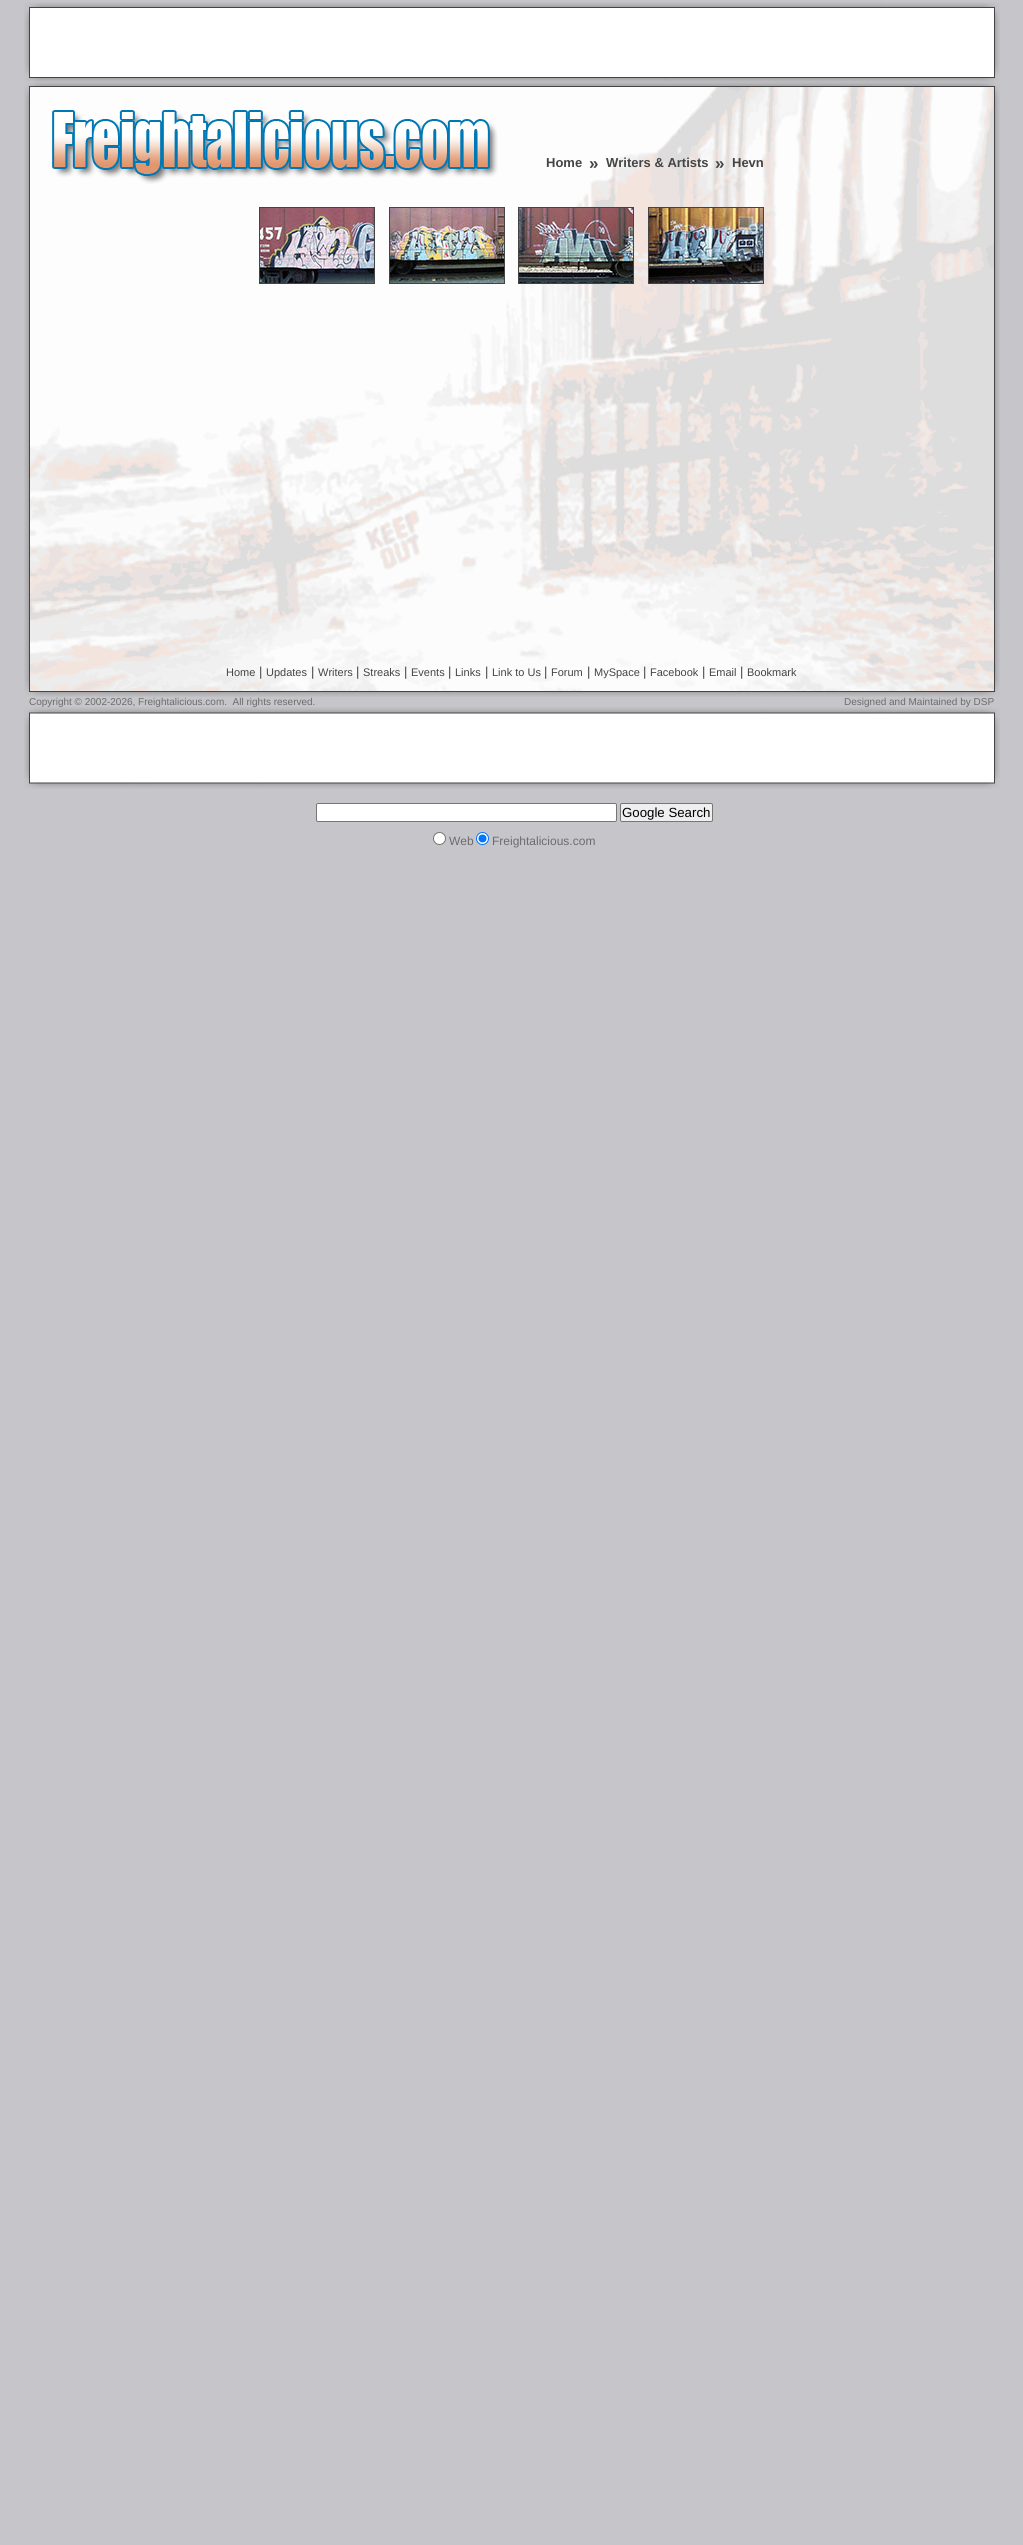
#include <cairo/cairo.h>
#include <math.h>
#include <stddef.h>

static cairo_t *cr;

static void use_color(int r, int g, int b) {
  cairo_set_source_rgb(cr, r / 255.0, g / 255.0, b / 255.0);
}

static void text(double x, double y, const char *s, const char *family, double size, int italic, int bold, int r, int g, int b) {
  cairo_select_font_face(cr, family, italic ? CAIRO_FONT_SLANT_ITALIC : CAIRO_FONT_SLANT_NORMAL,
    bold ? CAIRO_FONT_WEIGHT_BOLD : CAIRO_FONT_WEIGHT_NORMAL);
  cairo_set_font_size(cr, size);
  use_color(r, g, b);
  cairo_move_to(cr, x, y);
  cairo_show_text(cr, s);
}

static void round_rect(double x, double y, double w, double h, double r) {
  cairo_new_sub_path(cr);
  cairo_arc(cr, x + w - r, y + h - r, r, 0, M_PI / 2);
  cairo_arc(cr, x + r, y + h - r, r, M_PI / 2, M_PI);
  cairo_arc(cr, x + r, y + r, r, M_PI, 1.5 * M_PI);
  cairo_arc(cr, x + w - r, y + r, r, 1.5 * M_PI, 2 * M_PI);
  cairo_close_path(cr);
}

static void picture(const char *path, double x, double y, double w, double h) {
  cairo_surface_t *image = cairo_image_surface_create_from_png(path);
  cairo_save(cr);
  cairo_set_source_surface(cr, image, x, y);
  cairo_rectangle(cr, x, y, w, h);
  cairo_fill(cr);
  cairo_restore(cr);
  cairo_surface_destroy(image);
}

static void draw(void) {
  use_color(198, 198, 202);
  cairo_paint(cr);
  picture("img_01.png", 24, 2, 976, 80);
  picture("img_02.png", 24, 82, 976, 615);
  picture("img_03.png", 52, 110, 446, 74);
  cairo_rectangle(cr, 259.5, 207.5, 115, 76);
  use_color(68, 68, 68);
  cairo_set_line_width(cr, 1);
  cairo_stroke(cr);
  cairo_rectangle(cr, 389.5, 207.5, 115, 76);
  cairo_stroke(cr);
  cairo_rectangle(cr, 518.5, 207.5, 115, 76);
  cairo_stroke(cr);
  cairo_rectangle(cr, 648.5, 207.5, 115, 76);
  cairo_stroke(cr);
  picture("img_04.png", 260, 208, 114, 75);
  picture("img_05.png", 390, 208, 114, 75);
  picture("img_06.png", 519, 208, 114, 75);
  picture("img_07.png", 649, 208, 114, 75);
  picture("img_08.png", 24, 707, 976, 82);
  use_color(255, 255, 255);
  round_rect(316.5, 803.5, 300, 18, 1.5);
  cairo_fill_preserve(cr);
  use_color(118, 118, 118);
  cairo_stroke(cr);
  use_color(239, 239, 239);
  round_rect(620.5, 803.5, 92, 18, 1.5);
  cairo_fill_preserve(cr);
  use_color(118, 118, 118);
  cairo_stroke(cr);
  use_color(255, 255, 255);
  cairo_arc(cr, 439.5, 838.5, 6, 0, 2 * M_PI);
  cairo_fill_preserve(cr);
  use_color(118, 118, 118);
  cairo_stroke(cr);
  use_color(255, 255, 255);
  cairo_arc(cr, 482.5, 838.5, 6, 0, 2 * M_PI);
  cairo_fill_preserve(cr);
  use_color(0, 117, 255);
  cairo_stroke(cr);
  cairo_arc(cr, 482.5, 838.5, 4, 0, 2 * M_PI);
  cairo_fill(cr);
  text(546, 167, "Home", "Liberation Sans", 13, 0, 1, 68, 68, 68);
  text(589, 169, "»", "Liberation Sans", 17, 0, 1, 68, 68, 68);
  text(606, 167, "Writers & Artists", "Liberation Sans", 13, 0, 1, 68, 68, 68);
  text(715, 169, "»", "Liberation Sans", 17, 0, 1, 68, 68, 68);
  text(732, 167, "Hevn", "Liberation Sans", 13, 0, 1, 68, 68, 68);
  text(226, 676, "Home", "Liberation Sans", 11, 0, 0, 68, 68, 68);
  text(259, 676, "|", "Liberation Sans", 13, 0, 0, 68, 68, 68);
  text(266, 676, "Updates", "Liberation Sans", 11, 0, 0, 68, 68, 68);
  text(311, 676, "|", "Liberation Sans", 13, 0, 0, 68, 68, 68);
  text(318, 676, "Writers", "Liberation Sans", 11, 0, 0, 68, 68, 68);
  text(356, 676, "|", "Liberation Sans", 13, 0, 0, 68, 68, 68);
  text(363, 676, "Streaks", "Liberation Sans", 11, 0, 0, 68, 68, 68);
  text(404, 676, "|", "Liberation Sans", 13, 0, 0, 68, 68, 68);
  text(411, 676, "Events", "Liberation Sans", 11, 0, 0, 68, 68, 68);
  text(448, 676, "|", "Liberation Sans", 13, 0, 0, 68, 68, 68);
  text(455, 676, "Links", "Liberation Sans", 11, 0, 0, 68, 68, 68);
  text(485, 676, "|", "Liberation Sans", 13, 0, 0, 68, 68, 68);
  text(492, 676, "Link to Us", "Liberation Sans", 11, 0, 0, 68, 68, 68);
  text(544, 676, "|", "Liberation Sans", 13, 0, 0, 68, 68, 68);
  text(551, 676, "Forum", "Liberation Sans", 11, 0, 0, 68, 68, 68);
  text(587, 676, "|", "Liberation Sans", 13, 0, 0, 68, 68, 68);
  text(594, 676, "MySpace", "Liberation Sans", 11, 0, 0, 68, 68, 68);
  text(643, 676, "|", "Liberation Sans", 13, 0, 0, 68, 68, 68);
  text(650, 676, "Facebook", "Liberation Sans", 11, 0, 0, 68, 68, 68);
  text(702, 676, "|", "Liberation Sans", 13, 0, 0, 68, 68, 68);
  text(709, 676, "Email", "Liberation Sans", 11, 0, 0, 68, 68, 68);
  text(740, 676, "|", "Liberation Sans", 13, 0, 0, 68, 68, 68);
  text(747, 676, "Bookmark", "Liberation Sans", 11, 0, 0, 68, 68, 68);
  text(29, 705, "Copyright © 2002-2026, Freightalicious.com.  All rights reserved.", "Liberation Sans", 10, 0, 0, 108, 108, 108);
  text(844, 705, "Designed and Maintained by DSP", "Liberation Sans", 10, 0, 0, 108, 108, 108);
  text(622, 817, "Google Search", "Liberation Sans", 13.25, 0, 0, 0, 0, 0);
  text(449, 845, "Web", "Liberation Sans", 12, 0, 0, 108, 108, 108);
  text(492, 845, "Freightalicious.com", "Liberation Sans", 12, 0, 0, 108, 108, 108);
}

int main(void) {
  cairo_surface_t *surface = cairo_image_surface_create(CAIRO_FORMAT_RGB24, 1023, 2545);
  cr = cairo_create(surface);
  cairo_font_options_t *options = cairo_font_options_create();
  cairo_font_options_set_hint_metrics(options, CAIRO_HINT_METRICS_OFF);
  cairo_font_options_set_hint_style(options, CAIRO_HINT_STYLE_NONE);
  cairo_set_font_options(cr, options);
  cairo_set_miter_limit(cr, 4);
  draw();
  cairo_surface_write_to_png(surface, "out.png");
  cairo_font_options_destroy(options);
  cairo_destroy(cr);
  cairo_surface_destroy(surface);
  return 0;
}
